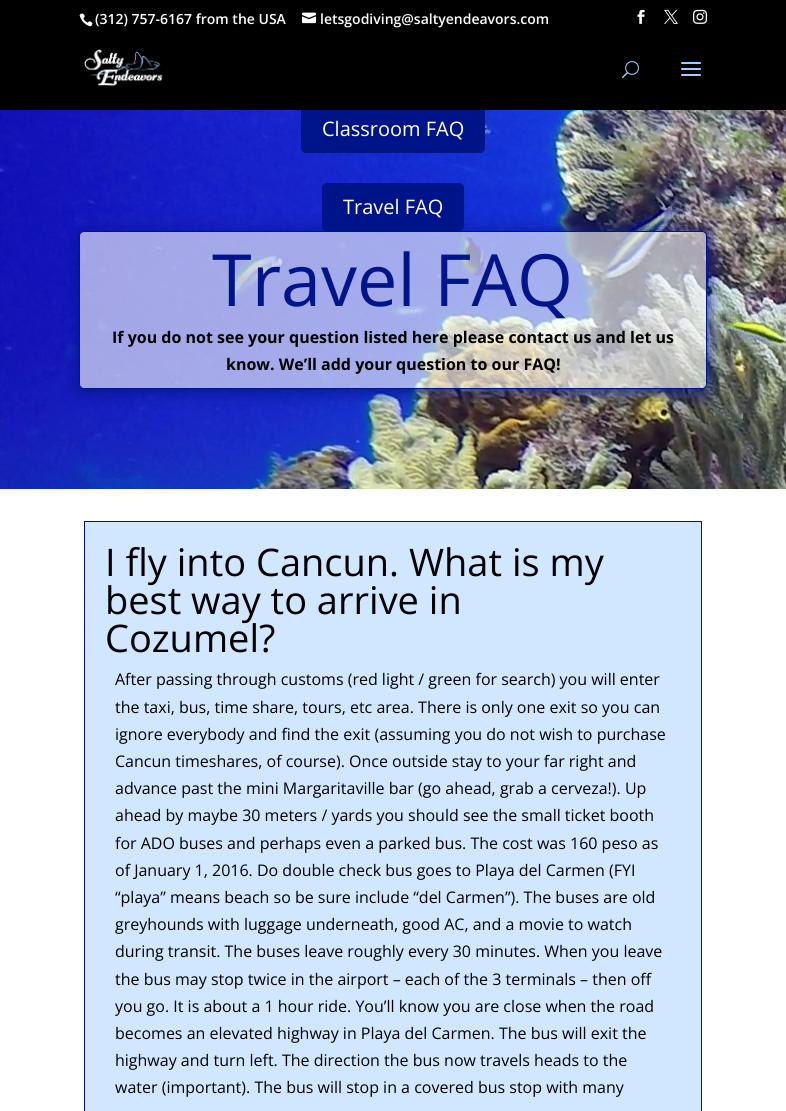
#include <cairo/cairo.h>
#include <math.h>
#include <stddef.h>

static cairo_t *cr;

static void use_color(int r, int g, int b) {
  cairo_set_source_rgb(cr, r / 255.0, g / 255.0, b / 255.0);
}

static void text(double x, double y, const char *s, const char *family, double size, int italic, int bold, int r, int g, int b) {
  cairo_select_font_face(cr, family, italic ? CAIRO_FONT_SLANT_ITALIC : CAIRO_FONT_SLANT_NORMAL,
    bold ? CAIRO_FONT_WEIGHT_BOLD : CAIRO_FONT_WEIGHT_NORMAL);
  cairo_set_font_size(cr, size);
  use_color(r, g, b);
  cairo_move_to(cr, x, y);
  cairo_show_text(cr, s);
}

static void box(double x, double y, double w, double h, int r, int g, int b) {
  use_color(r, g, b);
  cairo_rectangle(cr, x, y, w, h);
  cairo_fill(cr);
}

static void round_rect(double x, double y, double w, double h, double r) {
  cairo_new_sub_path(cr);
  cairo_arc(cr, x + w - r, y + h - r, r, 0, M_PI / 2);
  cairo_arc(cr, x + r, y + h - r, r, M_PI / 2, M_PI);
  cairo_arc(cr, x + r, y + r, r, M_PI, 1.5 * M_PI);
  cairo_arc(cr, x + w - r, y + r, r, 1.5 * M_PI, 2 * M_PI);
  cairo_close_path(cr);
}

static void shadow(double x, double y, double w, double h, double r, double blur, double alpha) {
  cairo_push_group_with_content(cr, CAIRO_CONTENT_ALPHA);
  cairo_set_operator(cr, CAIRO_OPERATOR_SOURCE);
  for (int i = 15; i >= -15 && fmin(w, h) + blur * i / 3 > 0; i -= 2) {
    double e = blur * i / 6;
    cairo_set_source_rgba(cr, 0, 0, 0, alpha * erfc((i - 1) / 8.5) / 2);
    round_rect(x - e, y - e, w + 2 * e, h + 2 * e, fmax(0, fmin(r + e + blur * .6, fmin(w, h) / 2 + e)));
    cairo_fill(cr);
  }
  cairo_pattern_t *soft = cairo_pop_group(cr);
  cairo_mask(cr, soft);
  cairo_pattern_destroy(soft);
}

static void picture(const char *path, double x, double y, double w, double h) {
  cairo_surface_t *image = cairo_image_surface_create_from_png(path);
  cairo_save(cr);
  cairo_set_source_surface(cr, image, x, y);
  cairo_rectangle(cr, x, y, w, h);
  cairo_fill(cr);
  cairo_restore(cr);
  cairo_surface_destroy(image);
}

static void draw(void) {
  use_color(255, 255, 255);
  cairo_paint(cr);
  picture("img_09.png", 0, 110, 786, 379);
  use_color(0, 20, 137);
  round_rect(301.5, 105.5, 183, 47, 4.5);
  cairo_fill_preserve(cr);
  cairo_set_line_width(cr, 1);
  cairo_stroke(cr);
  box(0, 0, 786, 110, 0, 0, 0);
  picture("img_01.png", 84, 49, 79, 38);
  picture("img_02.png", 622, 61, 17, 18);
  picture("img_03.png", 681, 62, 20, 14);
  picture("img_04.png", 79, 13, 14, 14);
  picture("img_05.png", 302, 12, 14, 12);
  picture("img_06.png", 637, 9, 8, 15);
  picture("img_07.png", 664, 9, 14, 15);
  picture("img_08.png", 693, 9, 14, 15);
  cairo_save(cr);
  cairo_set_fill_rule(cr, CAIRO_FILL_RULE_EVEN_ODD);
  cairo_new_path(cr);
  cairo_move_to(cr, 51, 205);
  cairo_line_to(cr, 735, 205);
  cairo_line_to(cr, 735, 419);
  cairo_line_to(cr, 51, 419);
  cairo_close_path(cr);
  cairo_move_to(cr, 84, 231);
  cairo_line_to(cr, 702, 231);
  cairo_curve_to(cr, 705, 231, 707, 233, 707, 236);
  cairo_line_to(cr, 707, 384);
  cairo_curve_to(cr, 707, 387, 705, 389, 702, 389);
  cairo_line_to(cr, 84, 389);
  cairo_curve_to(cr, 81, 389, 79, 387, 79, 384);
  cairo_line_to(cr, 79, 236);
  cairo_curve_to(cr, 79, 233, 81, 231, 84, 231);
  cairo_close_path(cr);
  cairo_clip(cr);
  use_color(0, 21, 137);
  shadow(79, 233, 628, 158, 5, 9, 1);
  cairo_restore(cr);
  use_color(0, 20, 137);
  round_rect(322.5, 183.5, 141, 47, 4.5);
  cairo_fill_preserve(cr);
  cairo_stroke(cr);
  cairo_set_source_rgba(cr, 1, 1, 1, 0.61);
  round_rect(79.5, 231.5, 627, 157, 4.5);
  cairo_fill_preserve(cr);
  use_color(0, 21, 137);
  cairo_stroke(cr);
  use_color(209, 230, 255);
  cairo_rectangle(cr, 84.5, 521.5, 617, 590);
  cairo_fill_preserve(cr);
  use_color(0, 21, 137);
  cairo_stroke(cr);
  text(95, 24, "(312) 757-6167 from the USA", "Open Sans SemiBold", 14, 0, 0, 255, 255, 255);
  text(320, 24, "letsgodiving@saltyendeavors.com", "Open Sans SemiBold", 14, 0, 0, 255, 255, 255);
  text(322, 136, "Classroom FAQ", "Open Sans", 20, 0, 0, 255, 255, 255);
  text(343, 214, "Travel FAQ", "Open Sans", 20, 0, 0, 255, 255, 255);
  text(212, 306, "Travel FAQ", "Open Sans", 72, 0, 0, 0, 21, 137);
  text(112, 343, "If you do not see your question listed here please contact us and let us", "Open Sans", 16, 0, 1, 0, 0, 0);
  text(226, 370, "know. We’ll add your question to our FAQ!", "Open Sans", 16, 0, 1, 0, 0, 0);
  text(105, 576, "I fly into Cancun. What is my", "Open Sans", 38, 0, 0, 0, 0, 0);
  text(105, 614, "best way to arrive in", "Open Sans", 38, 0, 0, 0, 0, 0);
  text(105, 652, "Cozumel?", "Open Sans", 38, 0, 0, 0, 0, 0);
  text(115, 685, "After passing through customs (red light / green for search) you will enter", "Open Sans", 16, 0, 0, 0, 0, 0);
  text(115, 713, "the taxi, bus, time share, tours, etc area. There is only one exit so you can", "Open Sans", 16, 0, 0, 0, 0, 0);
  text(115, 740, "ignore everybody and find the exit (assuming you do not wish to purchase", "Open Sans", 16, 0, 0, 0, 0, 0);
  text(115, 767, "Cancun timeshares, of course). Once outside stay to your far right and", "Open Sans", 16, 0, 0, 0, 0, 0);
  text(115, 794, "advance past the mini Margaritaville bar (go ahead, grab a cerveza!). Up", "Open Sans", 16, 0, 0, 0, 0, 0);
  text(115, 821, "ahead by maybe 30 meters / yards you should see the small ticket booth", "Open Sans", 16, 0, 0, 0, 0, 0);
  text(115, 849, "for ADO buses and perhaps even a parked bus. The cost was 160 peso as", "Open Sans", 16, 0, 0, 0, 0, 0);
  text(115, 876, "of January 1, 2016. Do double check bus goes to Playa del Carmen (FYI", "Open Sans", 16, 0, 0, 0, 0, 0);
  text(115, 903, "“playa” means beach so be sure include “del Carmen”). The buses are old", "Open Sans", 16, 0, 0, 0, 0, 0);
  text(115, 930, "greyhounds with luggage underneath, good AC, and a movie to watch", "Open Sans", 16, 0, 0, 0, 0, 0);
  text(115, 957, "during transit. The buses leave roughly every 30 minutes. When you leave", "Open Sans", 16, 0, 0, 0, 0, 0);
  text(115, 985, "the bus may stop twice in the airport – each of the 3 terminals – then off", "Open Sans", 16, 0, 0, 0, 0, 0);
  text(115, 1012, "you go. It is about a 1 hour ride. You’ll know you are close when the road", "Open Sans", 16, 0, 0, 0, 0, 0);
  text(115, 1039, "becomes an elevated highway in Playa del Carmen. The bus will exit the", "Open Sans", 16, 0, 0, 0, 0, 0);
  text(115, 1066, "highway and turn left. The direction the bus now travels heads to the", "Open Sans", 16, 0, 0, 0, 0, 0);
  text(115, 1093, "water (important). The bus will stop in a covered bus stop with many", "Open Sans", 16, 0, 0, 0, 0, 0);
}

int main(void) {
  cairo_surface_t *surface = cairo_image_surface_create(CAIRO_FORMAT_RGB24, 786, 1111);
  cr = cairo_create(surface);
  cairo_font_options_t *options = cairo_font_options_create();
  cairo_font_options_set_hint_metrics(options, CAIRO_HINT_METRICS_OFF);
  cairo_font_options_set_hint_style(options, CAIRO_HINT_STYLE_NONE);
  cairo_set_font_options(cr, options);
  cairo_set_miter_limit(cr, 4);
  draw();
  cairo_surface_write_to_png(surface, "out.png");
  cairo_font_options_destroy(options);
  cairo_destroy(cr);
  cairo_surface_destroy(surface);
  return 0;
}
